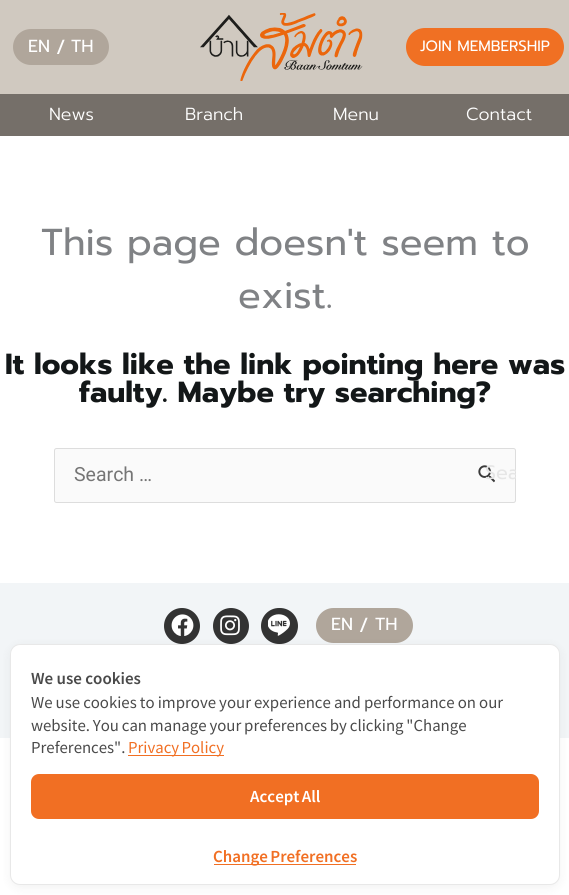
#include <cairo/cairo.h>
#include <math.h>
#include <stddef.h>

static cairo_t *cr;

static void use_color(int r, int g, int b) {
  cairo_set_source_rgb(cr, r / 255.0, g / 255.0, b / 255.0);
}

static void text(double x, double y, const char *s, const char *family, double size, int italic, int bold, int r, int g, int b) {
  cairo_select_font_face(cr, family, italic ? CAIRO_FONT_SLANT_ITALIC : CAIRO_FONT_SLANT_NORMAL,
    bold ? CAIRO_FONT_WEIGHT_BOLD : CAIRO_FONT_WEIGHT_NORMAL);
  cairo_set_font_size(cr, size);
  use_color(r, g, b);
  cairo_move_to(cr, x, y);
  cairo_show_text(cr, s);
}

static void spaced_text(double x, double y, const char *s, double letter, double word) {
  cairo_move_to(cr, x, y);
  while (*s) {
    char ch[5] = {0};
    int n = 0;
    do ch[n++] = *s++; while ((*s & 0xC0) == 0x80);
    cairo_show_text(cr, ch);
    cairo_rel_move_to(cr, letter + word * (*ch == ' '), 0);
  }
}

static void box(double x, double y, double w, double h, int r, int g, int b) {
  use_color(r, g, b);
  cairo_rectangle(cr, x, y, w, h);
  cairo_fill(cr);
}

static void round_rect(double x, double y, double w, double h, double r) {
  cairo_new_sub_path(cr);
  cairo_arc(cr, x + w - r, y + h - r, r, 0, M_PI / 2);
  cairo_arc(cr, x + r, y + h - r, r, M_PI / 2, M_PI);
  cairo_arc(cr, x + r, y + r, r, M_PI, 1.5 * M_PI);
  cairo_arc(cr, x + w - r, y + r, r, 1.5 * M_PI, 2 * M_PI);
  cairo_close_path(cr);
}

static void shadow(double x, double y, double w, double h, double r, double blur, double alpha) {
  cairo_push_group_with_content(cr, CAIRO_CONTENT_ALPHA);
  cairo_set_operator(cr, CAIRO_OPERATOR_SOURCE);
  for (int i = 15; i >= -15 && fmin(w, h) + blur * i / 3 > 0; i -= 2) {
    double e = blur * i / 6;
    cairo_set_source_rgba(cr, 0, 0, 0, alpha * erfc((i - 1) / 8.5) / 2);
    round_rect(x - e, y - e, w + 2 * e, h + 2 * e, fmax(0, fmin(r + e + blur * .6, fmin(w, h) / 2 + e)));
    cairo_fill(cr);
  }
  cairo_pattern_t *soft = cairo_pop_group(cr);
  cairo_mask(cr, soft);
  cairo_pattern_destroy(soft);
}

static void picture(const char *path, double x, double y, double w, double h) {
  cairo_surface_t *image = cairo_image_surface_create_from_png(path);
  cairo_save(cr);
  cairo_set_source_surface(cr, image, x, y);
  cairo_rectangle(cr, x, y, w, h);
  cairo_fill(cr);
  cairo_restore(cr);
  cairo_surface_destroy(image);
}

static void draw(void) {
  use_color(255, 255, 255);
  cairo_paint(cr);
  box(0, 0, 569, 94, 208, 201, 192);
  use_color(176, 166, 155);
  round_rect(13, 29, 96, 36, 18);
  cairo_fill(cr);
  picture("img_01.png", 200, 13, 163, 68);
  use_color(240, 112, 35);
  round_rect(406, 28, 158, 38, 19);
  cairo_fill(cr);
  box(0, 94, 569, 42, 117, 111, 105);
  use_color(250, 250, 250);
  round_rect(54.5, 448.5, 461, 54, 2);
  cairo_fill_preserve(cr);
  use_color(221, 221, 221);
  cairo_set_line_width(cr, 1);
  cairo_stroke(cr);
  picture("img_02.png", 478, 465, 17, 18);
  box(0, 583, 569, 155, 242, 245, 247);
  use_color(51, 51, 51);
  cairo_arc(cr, 182, 626, 18, 0, 2 * M_PI);
  cairo_fill(cr);
  picture("img_03.png", 171, 614, 23, 22);
  cairo_arc(cr, 231, 626, 18, 0, 2 * M_PI);
  cairo_fill(cr);
  picture("img_04.png", 220, 615, 20, 21);
  round_rect(261, 608, 37, 36, 18);
  cairo_fill(cr);
  picture("img_05.png", 268, 614, 22, 22);
  use_color(176, 166, 155);
  round_rect(316, 608, 97, 35, 17.5);
  cairo_fill(cr);
  use_color(0, 0, 0);
  shadow(10, 646, 550, 242, 10, 5, 0.05);
  use_color(255, 255, 255);
  round_rect(10.5, 644.5, 549, 240, 9.5);
  cairo_fill_preserve(cr);
  use_color(232, 232, 232);
  cairo_stroke(cr);
  box(128, 755, 96, 1, 241, 111, 35);
  round_rect(31, 774, 508, 45, 8);
  cairo_fill(cr);
  box(214, 864, 142, 1, 241, 111, 35);
  text(28, 52, "EN", "Prompt", 17.5, 0, 0, 255, 255, 255);
  text(56, 54, "/", "Prompt", 20, 0, 0, 255, 255, 255);
  text(71, 52, "TH", "Prompt", 17.5, 0, 0, 255, 255, 255);
  text(420, 51, "JOIN MEMBERSHIP", "Prompt", 15, 0, 0, 255, 255, 255);
  text(49, 120, "News", "Prompt Light", 17.5, 0, 0, 255, 255, 255);
  text(185, 120, "Branch", "Prompt Light", 17.5, 0, 0, 255, 255, 255);
  text(333, 120, "Menu", "Prompt Light", 17.5, 0, 0, 255, 255, 255);
  text(466, 120, "Contact", "Prompt Light", 17.5, 0, 0, 255, 255, 255);
  text(41, 255, "This page doesn't seem to", "Prompt", 37.5, 0, 0, 128, 130, 133);
  text(238, 308, "exist.", "Prompt", 37.5, 0, 0, 128, 130, 133);
  text(5, 374, "It looks like the link pointing here was", "Prompt", 29.1, 0, 1, 19, 23, 24);
  text(79, 402, "faulty. Maybe try searching?", "Prompt", 29.1, 0, 1, 19, 23, 24);
  text(74, 481, "Search …", "Roboto", 19.5, 0, 0, 117, 117, 117);
  cairo_save(cr);
  round_rect(460, 448, 56, 51, 2.5);
  cairo_clip(cr);
  text(485, 479, "Sea", "Prompt", 19.5, 0, 0, 230, 230, 230);
  cairo_restore(cr);
  text(331, 630, "EN", "Prompt", 17.5, 0, 0, 255, 255, 255);
  text(359, 632, "/", "Prompt", 20, 0, 0, 255, 255, 255);
  text(375, 630, "TH", "Prompt", 17.5, 0, 0, 255, 255, 255);
  text(31, 684, "We use cookies", "Noto Sans JP SemiBold", 15, 0, 0, 74, 74, 74);
  cairo_select_font_face(cr, "Noto Sans JP", CAIRO_FONT_SLANT_NORMAL, CAIRO_FONT_WEIGHT_NORMAL);
  spaced_text(31, 708, "We use cookies to improve your experience and performance on our", 0, -0.25);
  spaced_text(31, 731, "website. You can manage your preferences by clicking \"Change", 0, -0.5);
  text(31, 753, "Preferences\".", "Noto Sans JP", 15, 0, 0, 74, 74, 74);
  use_color(241, 111, 35);
  spaced_text(128, 753, "Privacy Policy", 0, -1);
  cairo_select_font_face(cr, "Noto Sans JP SemiBold", CAIRO_FONT_SLANT_NORMAL, CAIRO_FONT_WEIGHT_NORMAL);
  use_color(255, 255, 255);
  spaced_text(250, 802, "Accept All", 0, -1);
  use_color(241, 111, 35);
  spaced_text(213, 862, "Change Preferences", 0, -1);
}

int main(void) {
  cairo_surface_t *surface = cairo_image_surface_create(CAIRO_FORMAT_RGB24, 569, 895);
  cr = cairo_create(surface);
  cairo_font_options_t *options = cairo_font_options_create();
  cairo_font_options_set_hint_metrics(options, CAIRO_HINT_METRICS_OFF);
  cairo_font_options_set_hint_style(options, CAIRO_HINT_STYLE_NONE);
  cairo_set_font_options(cr, options);
  cairo_set_miter_limit(cr, 4);
  draw();
  cairo_surface_write_to_png(surface, "out.png");
  cairo_font_options_destroy(options);
  cairo_destroy(cr);
  cairo_surface_destroy(surface);
  return 0;
}
